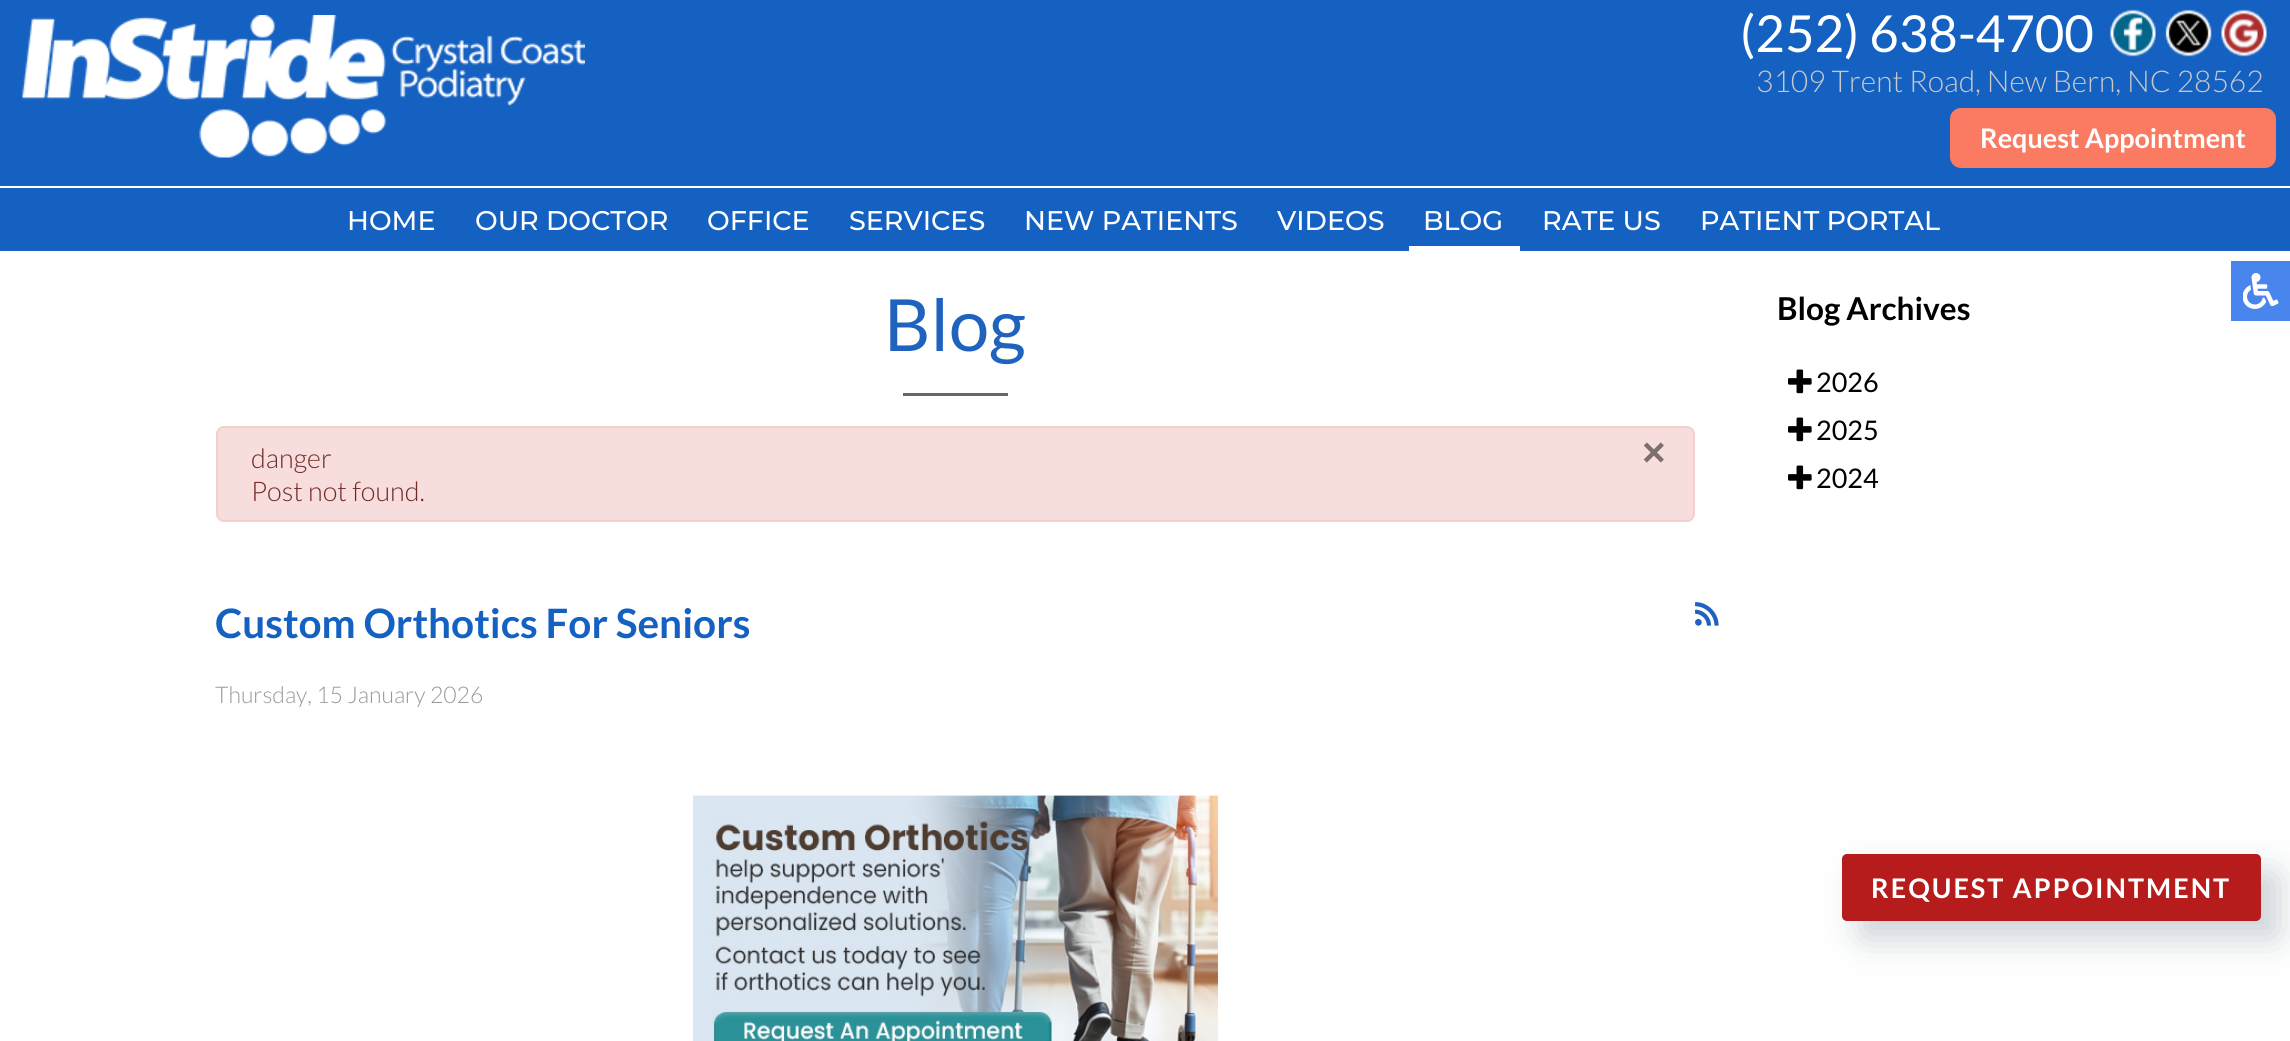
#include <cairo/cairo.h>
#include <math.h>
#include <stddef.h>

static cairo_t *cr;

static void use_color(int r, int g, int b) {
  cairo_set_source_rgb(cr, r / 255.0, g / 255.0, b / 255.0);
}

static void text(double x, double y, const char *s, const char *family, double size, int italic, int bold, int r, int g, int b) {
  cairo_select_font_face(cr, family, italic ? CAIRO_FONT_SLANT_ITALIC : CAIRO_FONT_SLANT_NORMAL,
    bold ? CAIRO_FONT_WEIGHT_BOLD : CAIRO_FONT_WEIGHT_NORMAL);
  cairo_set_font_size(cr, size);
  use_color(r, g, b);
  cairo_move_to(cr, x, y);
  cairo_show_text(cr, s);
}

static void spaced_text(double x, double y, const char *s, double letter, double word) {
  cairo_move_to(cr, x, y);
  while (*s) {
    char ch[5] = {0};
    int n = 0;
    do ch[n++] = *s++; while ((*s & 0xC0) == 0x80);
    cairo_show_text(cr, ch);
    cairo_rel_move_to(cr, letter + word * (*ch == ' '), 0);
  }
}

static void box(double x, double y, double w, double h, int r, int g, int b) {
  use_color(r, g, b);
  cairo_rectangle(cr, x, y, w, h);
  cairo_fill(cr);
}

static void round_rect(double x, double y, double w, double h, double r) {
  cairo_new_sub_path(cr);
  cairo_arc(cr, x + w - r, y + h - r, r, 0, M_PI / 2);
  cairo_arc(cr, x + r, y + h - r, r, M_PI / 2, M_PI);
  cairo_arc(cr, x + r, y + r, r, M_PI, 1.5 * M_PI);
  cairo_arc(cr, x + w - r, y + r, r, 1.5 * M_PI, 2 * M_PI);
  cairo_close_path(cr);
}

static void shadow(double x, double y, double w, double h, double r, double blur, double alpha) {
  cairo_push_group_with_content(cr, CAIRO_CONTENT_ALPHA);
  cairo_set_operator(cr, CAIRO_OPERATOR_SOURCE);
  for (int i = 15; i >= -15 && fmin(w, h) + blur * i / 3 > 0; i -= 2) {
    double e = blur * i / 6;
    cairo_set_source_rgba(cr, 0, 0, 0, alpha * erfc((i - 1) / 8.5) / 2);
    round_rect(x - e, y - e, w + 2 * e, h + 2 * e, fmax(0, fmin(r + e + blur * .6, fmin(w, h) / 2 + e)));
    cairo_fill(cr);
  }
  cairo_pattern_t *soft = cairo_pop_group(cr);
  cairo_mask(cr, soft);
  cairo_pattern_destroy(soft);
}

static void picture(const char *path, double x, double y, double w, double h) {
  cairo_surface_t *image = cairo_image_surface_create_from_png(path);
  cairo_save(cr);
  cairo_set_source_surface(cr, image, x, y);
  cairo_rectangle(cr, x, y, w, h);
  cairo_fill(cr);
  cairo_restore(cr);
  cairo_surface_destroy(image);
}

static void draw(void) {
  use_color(255, 255, 255);
  cairo_paint(cr);
  box(0, 0, 2290, 251, 20, 97, 193);
  box(0, 186, 2290, 2, 255, 255, 255);
  picture("img_01.png", 22, 15, 563, 143);
  picture("img_02.png", 2110, 9, 46, 48);
  picture("img_03.png", 2165, 9, 47, 48);
  picture("img_04.png", 2221, 9, 46, 48);
  use_color(250, 122, 98);
  round_rect(1951.5, 109.5, 323, 57, 9.5);
  cairo_fill_preserve(cr);
  cairo_set_line_width(cr, 3);
  cairo_stroke(cr);
  box(1409, 246, 111, 5, 255, 255, 255);
  box(903, 393, 105, 3, 100, 103, 107);
  use_color(247, 221, 220);
  round_rect(217, 427, 1477, 94, 7);
  cairo_fill_preserve(cr);
  use_color(244, 207, 206);
  cairo_set_line_width(cr, 2);
  cairo_stroke(cr);
  picture("img_05.png", 693, 795, 525, 246);
  picture("img_06.png", 1695, 602, 24, 24);
  picture("img_07.png", 1788, 369, 24, 25);
  picture("img_07.png", 1788, 417, 24, 25);
  picture("img_07.png", 1788, 465, 24, 25);
  box(2231, 261, 59, 60, 72, 133, 237);
  picture("img_08.png", 2243, 273, 36, 36);
  use_color(25, 54, 78);
  shadow(1860, 872, 419, 67, 5, 18, 0.22);
  use_color(183, 28, 28);
  round_rect(1842, 854, 419, 67, 5);
  cairo_fill(cr);
  text(1740, 52, "(252) 638-4700", "Lato", 51, 0, 0, 255, 255, 255);
  text(1756, 92, "3109 Trent Road, New Bern, NC 28562", "Lato Light", 30, 0, 0, 202, 201, 201);
  text(1980, 148, "Request Appointment", "Lato", 27, 0, 1, 255, 255, 255);
  text(347, 230, "HOME", "Montserrat Medium", 27, 0, 0, 255, 255, 255);
  text(475, 230, "OUR DOCTOR", "Montserrat Medium", 27, 0, 0, 255, 255, 255);
  text(707, 230, "OFFICE", "Montserrat Medium", 27, 0, 0, 255, 255, 255);
  text(849, 230, "SERVICES", "Montserrat Medium", 27, 0, 0, 255, 255, 255);
  text(1024, 230, "NEW PATIENTS", "Montserrat Medium", 27, 0, 0, 255, 255, 255);
  text(1277, 230, "VIDEOS", "Montserrat Medium", 27, 0, 0, 255, 255, 255);
  text(1423, 230, "BLOG", "Montserrat Medium", 27, 0, 0, 255, 255, 255);
  text(1542, 230, "RATE US", "Montserrat Medium", 27, 0, 0, 255, 255, 255);
  text(1700, 230, "PATIENT PORTAL", "Montserrat Medium", 27, 0, 0, 255, 255, 255);
  text(884, 351, "Blog", "Lato", 72, 0, 0, 32, 99, 191);
  text(251, 468, "danger", "Lato Light", 27, 0, 0, 113, 43, 41);
  text(1642, 466, "×", "Liberation Sans", 40.5, 0, 1, 124, 111, 110);
  text(251, 501, "Post not found.", "Lato Light", 27, 0, 0, 113, 43, 41);
  text(215, 638, "Custom Orthotics For Seniors", "Lato", 40.5, 0, 1, 20, 97, 193);
  text(215, 703, "Thursday, 15 January 2026", "Lato Light", 23, 0, 0, 153, 153, 153);
  text(1777, 320, "Blog Archives", "Lato", 31.5, 0, 1, 0, 0, 0);
  text(1816, 392, "2026", "Lato", 27, 0, 0, 0, 0, 0);
  text(1816, 440, "2025", "Lato", 27, 0, 0, 0, 0, 0);
  text(1816, 488, "2024", "Lato", 27, 0, 0, 0, 0, 0);
  cairo_select_font_face(cr, "Lato", CAIRO_FONT_SLANT_NORMAL, CAIRO_FONT_WEIGHT_BOLD);
  use_color(255, 255, 255);
  spaced_text(1871, 898, "REQUEST APPOINTMENT", 2, 0);
}

int main(void) {
  cairo_surface_t *surface = cairo_image_surface_create(CAIRO_FORMAT_RGB24, 2290, 1041);
  cr = cairo_create(surface);
  cairo_font_options_t *options = cairo_font_options_create();
  cairo_font_options_set_hint_metrics(options, CAIRO_HINT_METRICS_OFF);
  cairo_font_options_set_hint_style(options, CAIRO_HINT_STYLE_NONE);
  cairo_set_font_options(cr, options);
  cairo_set_miter_limit(cr, 4);
  draw();
  cairo_surface_write_to_png(surface, "out.png");
  cairo_font_options_destroy(options);
  cairo_destroy(cr);
  cairo_surface_destroy(surface);
  return 0;
}
